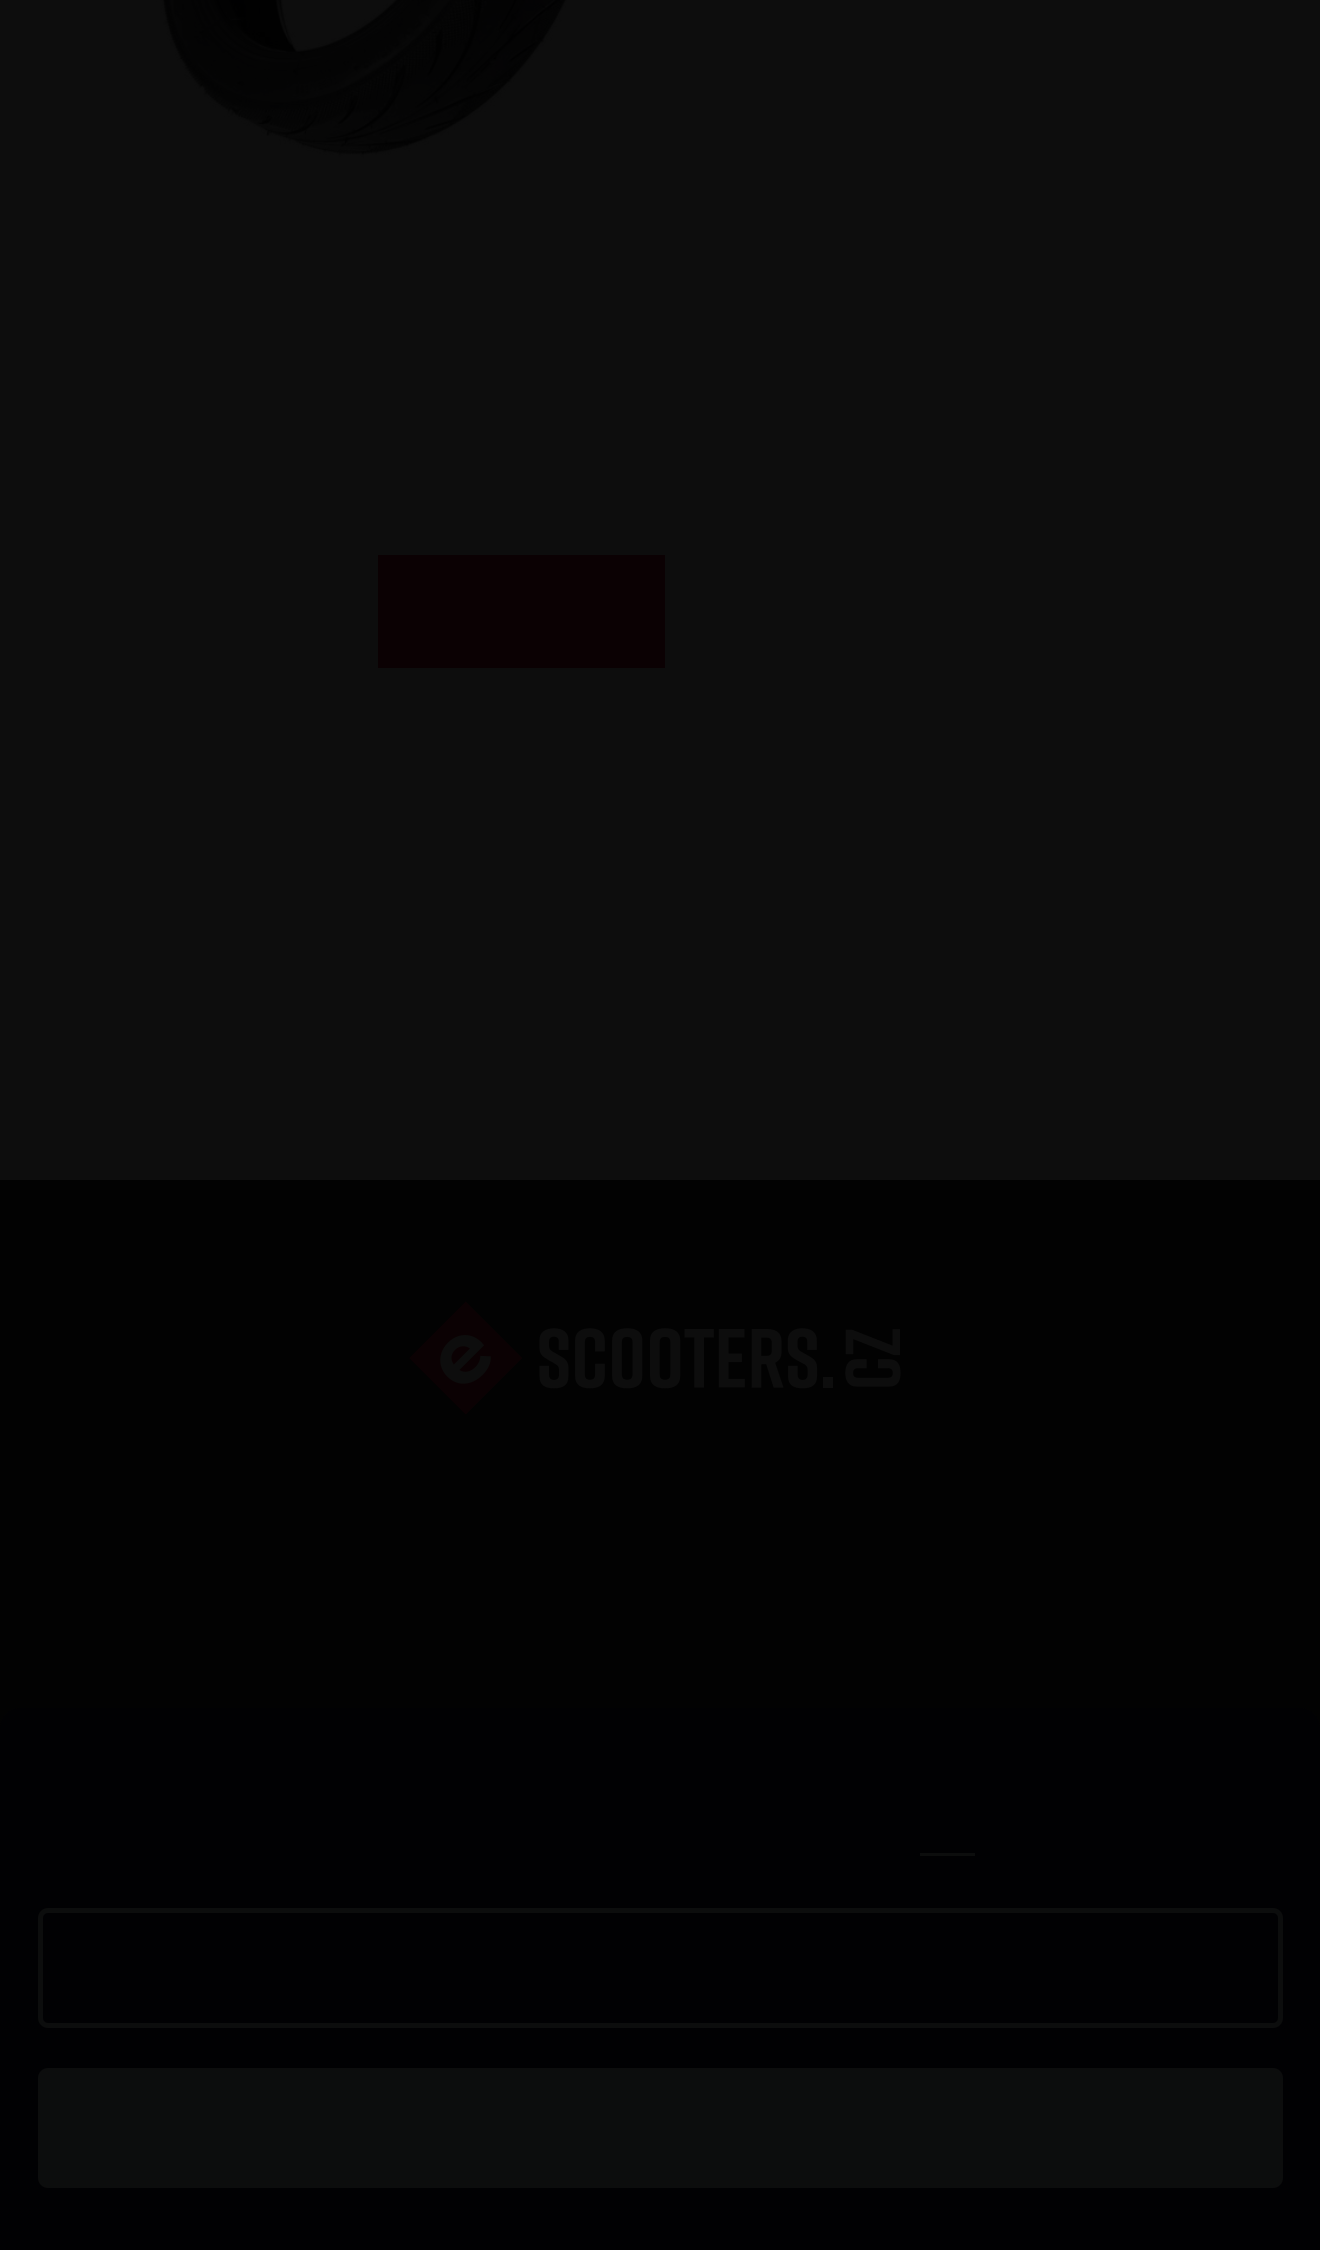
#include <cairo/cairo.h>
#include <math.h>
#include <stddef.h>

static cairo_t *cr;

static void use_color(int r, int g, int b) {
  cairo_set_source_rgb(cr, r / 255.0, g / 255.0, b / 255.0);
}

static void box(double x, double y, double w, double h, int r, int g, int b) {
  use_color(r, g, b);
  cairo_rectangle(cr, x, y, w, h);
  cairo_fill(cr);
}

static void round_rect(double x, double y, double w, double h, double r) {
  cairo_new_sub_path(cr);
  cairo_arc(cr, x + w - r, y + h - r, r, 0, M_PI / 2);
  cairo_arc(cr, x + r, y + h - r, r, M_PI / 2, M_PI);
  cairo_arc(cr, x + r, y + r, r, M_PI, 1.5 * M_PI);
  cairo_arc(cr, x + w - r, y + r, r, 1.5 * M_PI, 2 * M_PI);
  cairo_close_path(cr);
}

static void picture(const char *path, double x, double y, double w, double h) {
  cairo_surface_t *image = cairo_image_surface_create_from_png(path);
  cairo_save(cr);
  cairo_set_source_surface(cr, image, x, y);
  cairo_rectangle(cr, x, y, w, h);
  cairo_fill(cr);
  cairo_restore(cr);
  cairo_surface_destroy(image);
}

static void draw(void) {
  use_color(13, 13, 13);
  cairo_paint(cr);
  picture("img_01.png", 156, 0, 411, 159);
  box(378, 555, 287, 113, 11, 1, 3);
  box(0, 1180, 1320, 548, 2, 2, 2);
  picture("img_02.png", 409, 1301, 492, 114);
  use_color(1, 1, 3);
  cairo_new_path(cr);
  cairo_move_to(cr, 20, 1708);
  cairo_line_to(cr, 1300, 1708);
  cairo_curve_to(cr, 1311, 1708, 1320, 1717, 1320, 1728);
  cairo_line_to(cr, 1320, 2250);
  cairo_line_to(cr, 0, 2250);
  cairo_line_to(cr, 0, 1728);
  cairo_curve_to(cr, 0, 1717, 9, 1708, 20, 1708);
  cairo_close_path(cr);
  cairo_fill(cr);
  box(920, 1853, 55, 3, 12, 13, 13);
  round_rect(40.5, 1910.5, 1240, 115, 7.5);
  cairo_set_line_width(cr, 5);
  cairo_stroke(cr);
  round_rect(38, 2068, 1245, 120, 10);
  cairo_fill(cr);
}

int main(void) {
  cairo_surface_t *surface = cairo_image_surface_create(CAIRO_FORMAT_RGB24, 1320, 2250);
  cr = cairo_create(surface);
  cairo_font_options_t *options = cairo_font_options_create();
  cairo_font_options_set_hint_metrics(options, CAIRO_HINT_METRICS_OFF);
  cairo_font_options_set_hint_style(options, CAIRO_HINT_STYLE_NONE);
  cairo_set_font_options(cr, options);
  cairo_set_miter_limit(cr, 4);
  draw();
  cairo_surface_write_to_png(surface, "out.png");
  cairo_font_options_destroy(options);
  cairo_destroy(cr);
  cairo_surface_destroy(surface);
  return 0;
}
